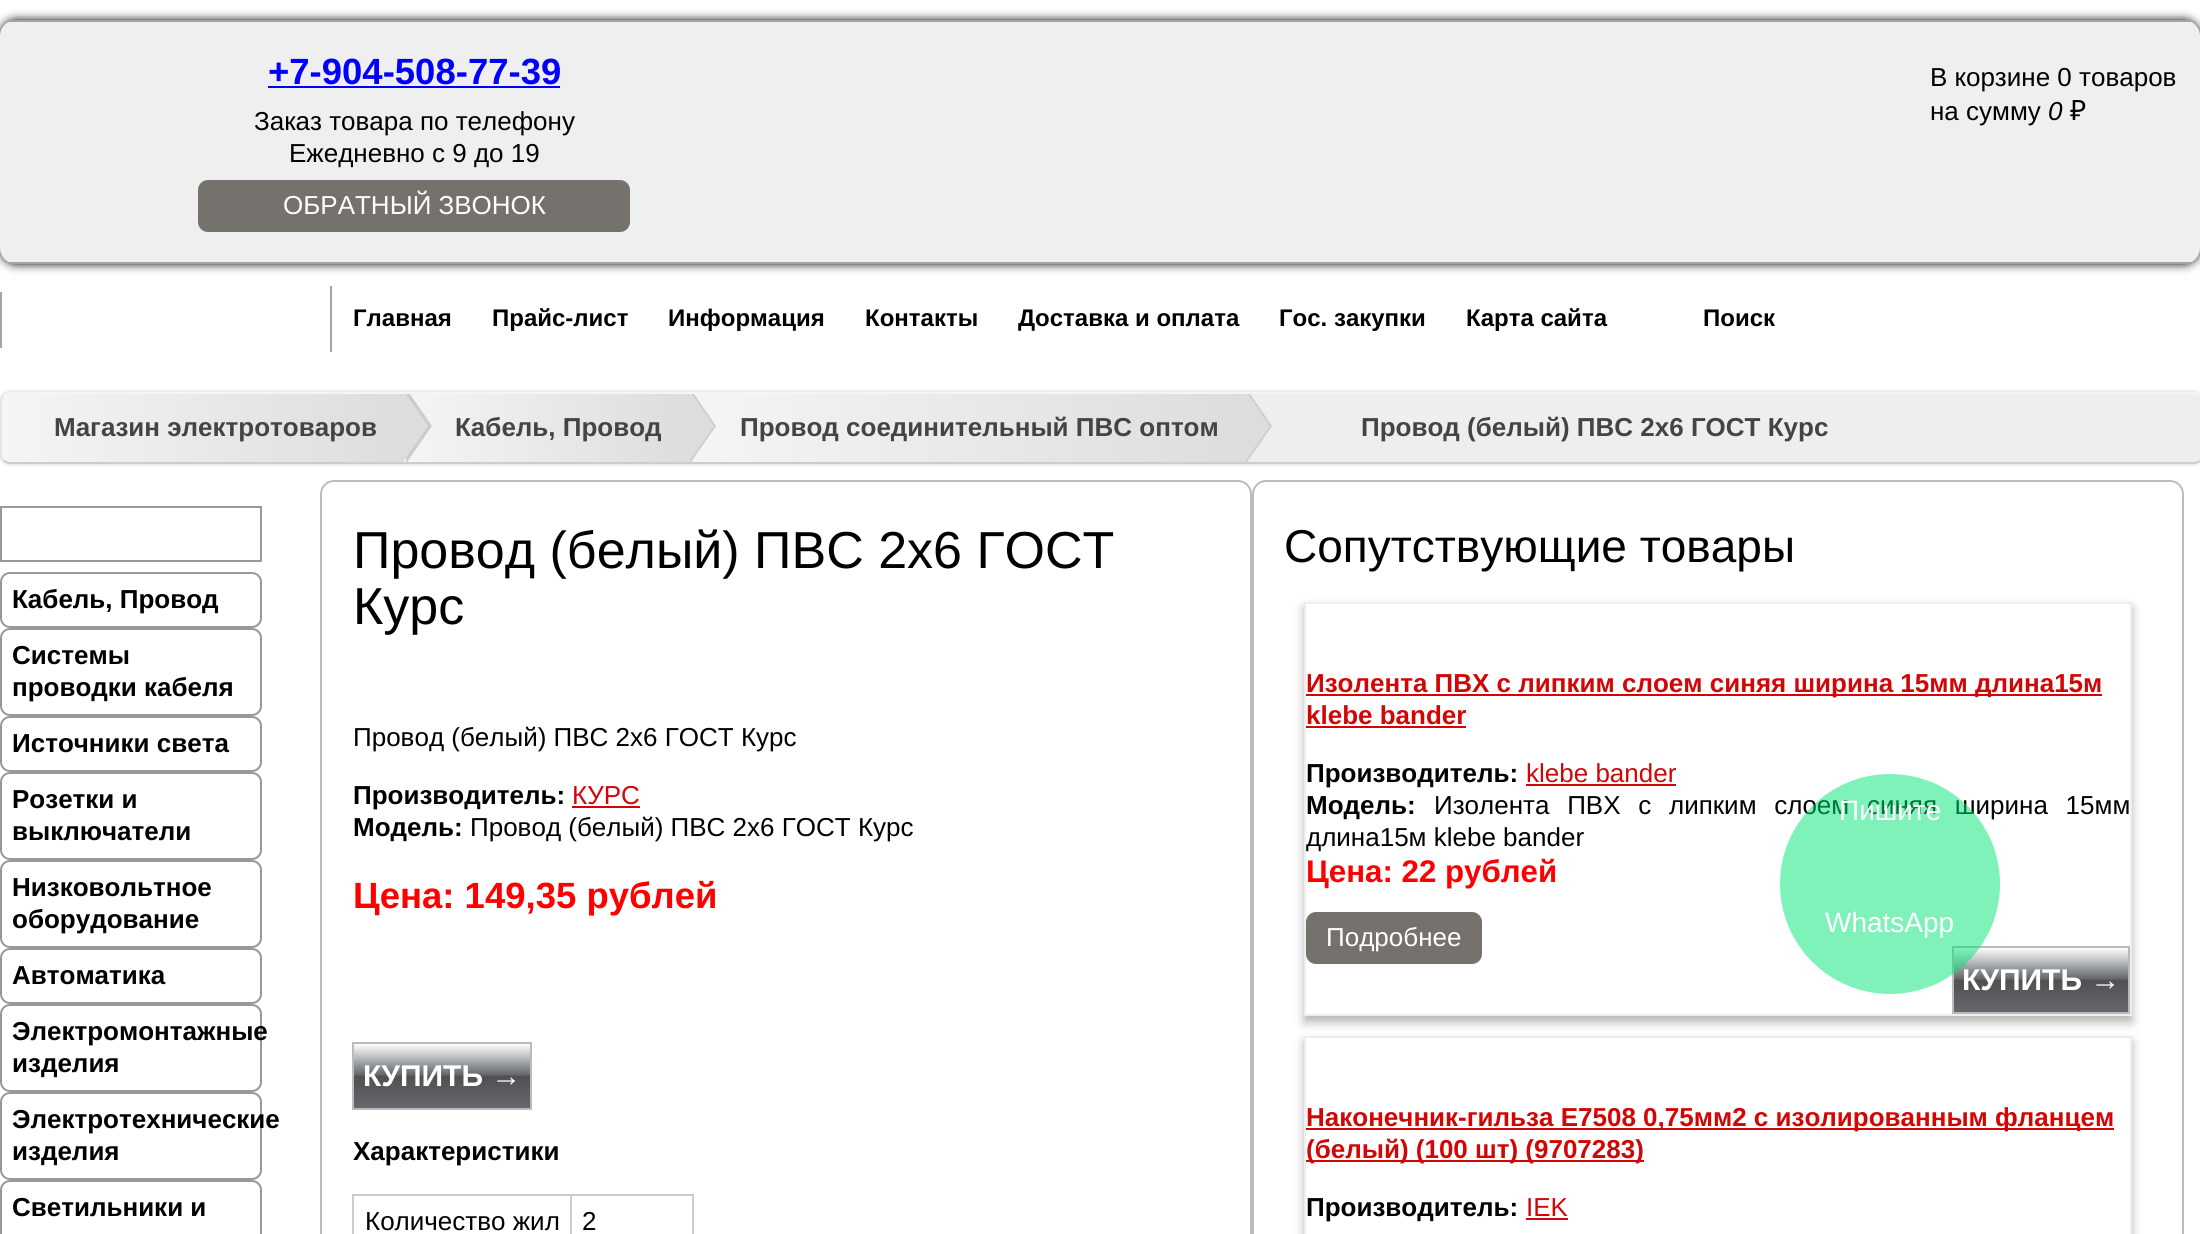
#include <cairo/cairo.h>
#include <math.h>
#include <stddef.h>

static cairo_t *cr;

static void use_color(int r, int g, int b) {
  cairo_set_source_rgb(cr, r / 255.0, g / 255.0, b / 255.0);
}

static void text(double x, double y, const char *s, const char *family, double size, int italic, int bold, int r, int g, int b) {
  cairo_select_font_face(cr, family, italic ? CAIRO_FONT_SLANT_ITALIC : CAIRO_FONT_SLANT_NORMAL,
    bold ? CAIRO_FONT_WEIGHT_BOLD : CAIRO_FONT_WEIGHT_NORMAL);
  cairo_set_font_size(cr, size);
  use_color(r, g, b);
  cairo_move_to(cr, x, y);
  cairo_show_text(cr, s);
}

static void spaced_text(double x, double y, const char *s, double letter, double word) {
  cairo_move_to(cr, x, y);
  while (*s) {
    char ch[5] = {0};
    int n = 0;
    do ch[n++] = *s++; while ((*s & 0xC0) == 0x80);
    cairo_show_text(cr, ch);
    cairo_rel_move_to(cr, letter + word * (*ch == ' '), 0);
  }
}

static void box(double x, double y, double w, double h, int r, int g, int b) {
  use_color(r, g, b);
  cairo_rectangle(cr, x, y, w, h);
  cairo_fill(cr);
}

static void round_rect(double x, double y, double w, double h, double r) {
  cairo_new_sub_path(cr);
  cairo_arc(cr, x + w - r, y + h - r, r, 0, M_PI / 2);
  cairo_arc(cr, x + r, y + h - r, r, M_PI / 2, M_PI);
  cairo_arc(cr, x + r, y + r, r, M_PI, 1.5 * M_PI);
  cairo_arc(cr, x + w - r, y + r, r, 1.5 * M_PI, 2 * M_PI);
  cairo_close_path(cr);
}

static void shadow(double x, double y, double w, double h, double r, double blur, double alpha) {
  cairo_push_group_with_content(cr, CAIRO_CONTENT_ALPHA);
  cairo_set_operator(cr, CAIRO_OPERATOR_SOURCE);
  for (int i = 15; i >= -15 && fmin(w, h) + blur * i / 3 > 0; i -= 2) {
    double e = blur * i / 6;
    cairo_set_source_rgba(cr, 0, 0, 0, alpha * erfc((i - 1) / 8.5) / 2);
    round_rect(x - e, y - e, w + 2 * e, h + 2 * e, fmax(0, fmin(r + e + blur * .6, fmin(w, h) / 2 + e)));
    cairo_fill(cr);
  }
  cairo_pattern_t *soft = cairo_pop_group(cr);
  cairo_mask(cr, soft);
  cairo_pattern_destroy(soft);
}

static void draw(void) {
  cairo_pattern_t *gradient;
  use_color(255, 255, 255);
  cairo_paint(cr);
  use_color(0, 0, 0);
  shadow(0, 20, 2200, 244, 16, 5, 1);
  use_color(239, 239, 239);
  round_rect(0, 20, 2200, 244, 16);
  cairo_fill(cr);
  box(8, 20, 2184, 2, 163, 164, 163);
  box(8, 262, 2184, 2, 163, 164, 163);
  box(268, 86, 292, 2, 0, 0, 255);
  use_color(117, 113, 109);
  round_rect(198, 180, 432, 52, 10);
  cairo_fill(cr);
  box(0, 292, 2, 56, 163, 164, 163);
  box(330, 286, 2, 66, 163, 164, 163);
  use_color(0, 0, 0);
  shadow(0, 392, 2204, 72, 10, 2, 0.2);
  use_color(238, 238, 238);
  round_rect(0, 392, 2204, 72, 10);
  cairo_fill(cr);
  cairo_new_path(cr);
  cairo_move_to(cr, 3.5, 395.5);
  cairo_curve_to(cr, 5.5, 394, 7.5, 393, 10, 393);
  cairo_line_to(cr, 2194, 393);
  cairo_curve_to(cr, 2196.5, 393, 2198.5, 394, 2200.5, 395.5);
  use_color(245, 245, 245);
  cairo_stroke(cr);
  cairo_new_path(cr);
  cairo_move_to(cr, 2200.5, 460.5);
  cairo_curve_to(cr, 2198.5, 462, 2196.5, 463, 2194, 463);
  cairo_line_to(cr, 10, 463);
  cairo_curve_to(cr, 7.5, 463, 5.5, 462, 3.5, 460.5);
  use_color(204, 204, 204);
  cairo_stroke(cr);
  cairo_new_path(cr);
  cairo_move_to(cr, 3.5, 460.5);
  cairo_curve_to(cr, 2, 458.5, 1, 456.5, 1, 454);
  cairo_line_to(cr, 1, 402);
  cairo_curve_to(cr, 1, 399.5, 2, 397.5, 3.5, 395.5);
  use_color(229, 229, 229);
  cairo_stroke(cr);
  gradient = cairo_pattern_create_linear(2, 428, 402, 428);
  cairo_pattern_add_color_stop_rgba(gradient, 0, 0.961, 0.961, 0.961, 1);
  cairo_pattern_add_color_stop_rgba(gradient, 1, 0.867, 0.867, 0.867, 1);
  cairo_set_source(cr, gradient);
  cairo_pattern_destroy(gradient);
  cairo_new_path(cr);
  cairo_move_to(cr, 10, 394);
  cairo_line_to(cr, 402, 394);
  cairo_line_to(cr, 402, 462);
  cairo_line_to(cr, 10, 462);
  cairo_curve_to(cr, 5.5, 462, 2, 458.5, 2, 454);
  cairo_line_to(cr, 2, 402);
  cairo_curve_to(cr, 2, 397.5, 5.5, 394, 10, 394);
  cairo_close_path(cr);
  cairo_fill(cr);
  gradient = cairo_pattern_create_linear(402, 428, 688, 428);
  cairo_pattern_add_color_stop_rgba(gradient, 0, 0.961, 0.961, 0.961, 1);
  cairo_pattern_add_color_stop_rgba(gradient, 1, 0.867, 0.867, 0.867, 1);
  cairo_set_source(cr, gradient);
  cairo_pattern_destroy(gradient);
  cairo_rectangle(cr, 403, 394, 285, 68);
  cairo_fill(cr);
  use_color(204, 204, 204);
  cairo_new_path(cr);
  cairo_move_to(cr, 410, 394);
  cairo_line_to(cr, 432, 426);
  cairo_line_to(cr, 407, 462);
  cairo_line_to(cr, 406, 462);
  cairo_line_to(cr, 406, 394);
  cairo_close_path(cr);
  cairo_fill(cr);
  use_color(221, 221, 221);
  cairo_new_path(cr);
  cairo_move_to(cr, 406, 394);
  cairo_line_to(cr, 428, 426);
  cairo_line_to(cr, 403, 462);
  cairo_line_to(cr, 402, 462);
  cairo_line_to(cr, 402, 394);
  cairo_close_path(cr);
  cairo_fill(cr);
  gradient = cairo_pattern_create_linear(688, 428, 1244, 428);
  cairo_pattern_add_color_stop_rgba(gradient, 0, 0.961, 0.961, 0.961, 1);
  cairo_pattern_add_color_stop_rgba(gradient, 1, 0.867, 0.867, 0.867, 1);
  cairo_set_source(cr, gradient);
  cairo_pattern_destroy(gradient);
  cairo_rectangle(cr, 689, 394, 555, 68);
  cairo_fill(cr);
  use_color(204, 204, 204);
  cairo_new_path(cr);
  cairo_move_to(cr, 694, 394);
  cairo_line_to(cr, 716, 426);
  cairo_line_to(cr, 691, 462);
  cairo_line_to(cr, 690, 462);
  cairo_line_to(cr, 690, 394);
  cairo_close_path(cr);
  cairo_fill(cr);
  use_color(221, 221, 221);
  cairo_new_path(cr);
  cairo_move_to(cr, 692, 394);
  cairo_line_to(cr, 714, 426);
  cairo_line_to(cr, 689, 462);
  cairo_line_to(cr, 688, 462);
  cairo_line_to(cr, 688, 394);
  cairo_close_path(cr);
  cairo_fill(cr);
  use_color(204, 204, 204);
  cairo_new_path(cr);
  cairo_move_to(cr, 1250, 394);
  cairo_line_to(cr, 1272, 426);
  cairo_line_to(cr, 1247, 462);
  cairo_line_to(cr, 1246, 462);
  cairo_line_to(cr, 1246, 394);
  cairo_close_path(cr);
  cairo_fill(cr);
  use_color(221, 221, 221);
  cairo_new_path(cr);
  cairo_move_to(cr, 1248, 394);
  cairo_line_to(cr, 1270, 426);
  cairo_line_to(cr, 1245, 462);
  cairo_line_to(cr, 1244, 462);
  cairo_line_to(cr, 1244, 394);
  cairo_close_path(cr);
  cairo_fill(cr);
  cairo_rectangle(cr, 1, 507, 260, 54);
  use_color(153, 153, 153);
  cairo_stroke(cr);
  round_rect(1, 573, 260, 54, 9);
  cairo_stroke(cr);
  round_rect(1, 629, 260, 86, 9);
  cairo_stroke(cr);
  round_rect(1, 717, 260, 54, 9);
  cairo_stroke(cr);
  round_rect(1, 773, 260, 86, 9);
  cairo_stroke(cr);
  round_rect(1, 861, 260, 86, 9);
  cairo_stroke(cr);
  round_rect(1, 949, 260, 54, 9);
  cairo_stroke(cr);
  round_rect(1, 1005, 260, 86, 9);
  cairo_stroke(cr);
  round_rect(1, 1093, 260, 86, 9);
  cairo_stroke(cr);
  round_rect(1, 1181, 260, 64, 9);
  cairo_stroke(cr);
  round_rect(321, 481, 930, 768, 13);
  use_color(189, 188, 189);
  cairo_stroke(cr);
  box(572, 806, 68, 2, 211, 6, 6);
  gradient = cairo_pattern_create_linear(442, 1044, 442, 1108);
  cairo_pattern_add_color_stop_rgba(gradient, 0, 0.996, 0.996, 0.996, 1);
  cairo_pattern_add_color_stop_rgba(gradient, 0.49, 0.38, 0.396, 0.408, 1);
  cairo_pattern_add_color_stop_rgba(gradient, 0.5, 0.314, 0.314, 0.322, 1);
  cairo_pattern_add_color_stop_rgba(gradient, 1, 0.4, 0.404, 0.427, 1);
  cairo_set_source(cr, gradient);
  cairo_pattern_destroy(gradient);
  cairo_rectangle(cr, 354, 1044, 176, 64);
  cairo_fill(cr);
  cairo_rectangle(cr, 353, 1043, 178, 66);
  use_color(187, 187, 187);
  cairo_stroke(cr);
  box(570, 1194, 124, 2, 204, 204, 204);
  box(570, 1194, 2, 40, 204, 204, 204);
  box(352, 1194, 220, 2, 204, 204, 204);
  box(352, 1194, 2, 40, 204, 204, 204);
  box(692, 1194, 2, 40, 204, 204, 204);
  round_rect(1253, 481, 930, 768, 13);
  use_color(189, 188, 189);
  cairo_stroke(cr);
  cairo_save(cr);
  cairo_set_fill_rule(cr, CAIRO_FILL_RULE_EVEN_ODD);
  cairo_new_path(cr);
  cairo_move_to(cr, 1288, 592);
  cairo_line_to(cr, 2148, 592);
  cairo_line_to(cr, 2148, 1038);
  cairo_line_to(cr, 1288, 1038);
  cairo_close_path(cr);
  cairo_move_to(cr, 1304, 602);
  cairo_line_to(cr, 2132, 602);
  cairo_line_to(cr, 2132, 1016);
  cairo_line_to(cr, 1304, 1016);
  cairo_close_path(cr);
  cairo_clip(cr);
  use_color(0, 0, 0);
  shadow(1304, 608, 828, 414, 0, 5, 0.3);
  cairo_restore(cr);
  cairo_rectangle(cr, 1305, 603, 826, 412);
  use_color(238, 238, 238);
  cairo_stroke(cr);
  box(1306, 694, 796, 2, 211, 6, 6);
  box(1306, 726, 160, 2, 211, 6, 6);
  box(1526, 784, 150, 2, 211, 6, 6);
  use_color(117, 113, 109);
  round_rect(1306, 912, 176, 52, 10);
  cairo_fill(cr);
  gradient = cairo_pattern_create_linear(2041, 948, 2041, 1012);
  cairo_pattern_add_color_stop_rgba(gradient, 0, 0.996, 0.996, 0.996, 1);
  cairo_pattern_add_color_stop_rgba(gradient, 0.49, 0.38, 0.396, 0.408, 1);
  cairo_pattern_add_color_stop_rgba(gradient, 0.5, 0.314, 0.314, 0.322, 1);
  cairo_pattern_add_color_stop_rgba(gradient, 1, 0.4, 0.404, 0.427, 1);
  cairo_set_source(cr, gradient);
  cairo_pattern_destroy(gradient);
  cairo_rectangle(cr, 1954, 948, 174, 64);
  cairo_fill(cr);
  cairo_rectangle(cr, 1953, 947, 176, 66);
  use_color(187, 187, 187);
  cairo_stroke(cr);
  cairo_save(cr);
  cairo_set_fill_rule(cr, CAIRO_FILL_RULE_EVEN_ODD);
  cairo_new_path(cr);
  cairo_move_to(cr, 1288, 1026);
  cairo_line_to(cr, 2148, 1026);
  cairo_line_to(cr, 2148, 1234);
  cairo_line_to(cr, 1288, 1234);
  cairo_close_path(cr);
  cairo_move_to(cr, 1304, 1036);
  cairo_line_to(cr, 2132, 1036);
  cairo_line_to(cr, 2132, 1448);
  cairo_line_to(cr, 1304, 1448);
  cairo_close_path(cr);
  cairo_clip(cr);
  use_color(0, 0, 0);
  shadow(1304, 1042, 828, 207, 0, 5, 0.3);
  cairo_restore(cr);
  cairo_rectangle(cr, 1305, 1037, 826, 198);
  use_color(238, 238, 238);
  cairo_stroke(cr);
  box(1306, 1128, 808, 2, 211, 6, 6);
  box(1306, 1160, 338, 2, 211, 6, 6);
  box(1526, 1218, 42, 2, 211, 6, 6);
  text(268, 84, "+7-904-508-77-39", "Liberation Sans", 36.5, 0, 1, 0, 0, 255);
  text(254, 130, "Заказ товара по телефону", "Liberation Sans", 26, 0, 0, 0, 0, 0);
  text(289, 162, "Ежедневно с 9 до 19", "Liberation Sans", 26, 0, 0, 0, 0, 0);
  text(283, 214, "ОБРАТНЫЙ ЗВОНОК", "Liberation Sans", 26, 0, 0, 255, 255, 255);
  text(1930, 86, "В корзине 0 товаров", "Liberation Sans", 26, 0, 0, 0, 0, 0);
  text(1930, 120, "на сумму", "Liberation Sans", 26, 0, 0, 0, 0, 0);
  text(2048, 120, "0", "Liberation Sans", 26, 1, 0, 0, 0, 0);
  text(2070, 120, "₽", "Noto Sans", 28, 0, 0, 0, 0, 0);
  text(353, 326, "Главная", "Liberation Sans", 24, 0, 1, 0, 0, 0);
  text(492, 326, "Прайс-лист", "Liberation Sans", 24, 0, 1, 0, 0, 0);
  text(668, 326, "Информация", "Liberation Sans", 24, 0, 1, 0, 0, 0);
  text(865, 326, "Контакты", "Liberation Sans", 24, 0, 1, 0, 0, 0);
  text(1018, 326, "Доставка и оплата", "Liberation Sans", 24, 0, 1, 0, 0, 0);
  text(1279, 326, "Гос. закупки", "Liberation Sans", 24, 0, 1, 0, 0, 0);
  text(1466, 326, "Карта сайта", "Liberation Sans", 24, 0, 1, 0, 0, 0);
  text(1703, 326, "Поиск", "Liberation Sans", 24, 0, 1, 0, 0, 0);
  text(54, 436, "Магазин электротоваров", "Liberation Sans", 26, 0, 1, 68, 68, 68);
  text(455, 436, "Кабель, Провод", "Liberation Sans", 26, 0, 1, 68, 68, 68);
  text(740, 436, "Провод соединительный ПВС оптом", "Liberation Sans", 26, 0, 1, 68, 68, 68);
  text(1361, 436, "Провод (белый) ПВС 2х6 ГОСТ Курс", "Liberation Sans", 26, 0, 1, 68, 68, 68);
  text(12, 608, "Кабель, Провод", "Liberation Sans", 26, 0, 1, 0, 0, 0);
  text(12, 664, "Системы", "Liberation Sans", 26, 0, 1, 0, 0, 0);
  text(12, 696, "проводки кабеля", "Liberation Sans", 26, 0, 1, 0, 0, 0);
  text(12, 752, "Источники света", "Liberation Sans", 26, 0, 1, 0, 0, 0);
  text(12, 808, "Розетки и", "Liberation Sans", 26, 0, 1, 0, 0, 0);
  text(12, 840, "выключатели", "Liberation Sans", 26, 0, 1, 0, 0, 0);
  text(12, 896, "Низковольтное", "Liberation Sans", 26, 0, 1, 0, 0, 0);
  text(12, 928, "оборудование", "Liberation Sans", 26, 0, 1, 0, 0, 0);
  text(12, 984, "Автоматика", "Liberation Sans", 26, 0, 1, 0, 0, 0);
  text(12, 1040, "Электромонтажные", "Liberation Sans", 26, 0, 1, 0, 0, 0);
  text(12, 1072, "изделия", "Liberation Sans", 26, 0, 1, 0, 0, 0);
  text(12, 1128, "Электротехнические", "Liberation Sans", 26, 0, 1, 0, 0, 0);
  text(12, 1160, "изделия", "Liberation Sans", 26, 0, 1, 0, 0, 0);
  text(12, 1216, "Светильники и", "Liberation Sans", 26, 0, 1, 0, 0, 0);
  text(353, 568, "Провод (белый) ПВС 2х6 ГОСТ", "Liberation Sans", 52, 0, 0, 0, 0, 0);
  text(353, 624, "Курс", "Liberation Sans", 52, 0, 0, 0, 0, 0);
  text(353, 746, "Провод (белый) ПВС 2х6 ГОСТ Курс", "Liberation Sans", 26, 0, 0, 0, 0, 0);
  text(353, 804, "Производитель:", "Liberation Sans", 26, 0, 1, 0, 0, 0);
  text(572, 804, "КУРС", "Liberation Sans", 26, 0, 0, 211, 6, 6);
  text(353, 836, "Модель:", "Liberation Sans", 26, 0, 1, 0, 0, 0);
  text(470, 836, "Провод (белый) ПВС 2х6 ГОСТ Курс", "Liberation Sans", 26, 0, 0, 0, 0, 0);
  text(353, 908, "Цена: 149,35 рублей", "Liberation Sans", 36.5, 0, 1, 255, 0, 0);
  text(363, 1086, "КУПИТЬ →", "Liberation Sans", 30, 0, 1, 255, 255, 255);
  text(353, 1160, "Характеристики", "Liberation Sans", 26, 0, 1, 0, 0, 0);
  text(365, 1230, "Количество жил", "Liberation Sans", 26, 0, 0, 0, 0, 0);
  text(582, 1230, "2", "Liberation Sans", 26, 0, 0, 0, 0, 0);
  text(1284, 562, "Сопутствующие товары", "Liberation Sans", 46, 0, 0, 0, 0, 0);
  text(1306, 692, "Изолента ПВХ с липким слоем синяя ширина 15мм длина15м", "Liberation Sans", 26, 0, 1, 211, 6, 6);
  text(1306, 724, "klebe bander", "Liberation Sans", 26, 0, 1, 211, 6, 6);
  text(1306, 782, "Производитель:", "Liberation Sans", 26, 0, 1, 0, 0, 0);
  text(1526, 782, "klebe bander", "Liberation Sans", 26, 0, 0, 211, 6, 6);
  text(1306, 814, "Модель:", "Liberation Sans", 26, 0, 1, 0, 0, 0);
  cairo_select_font_face(cr, "Liberation Sans", CAIRO_FONT_SLANT_NORMAL, CAIRO_FONT_WEIGHT_NORMAL);
  spaced_text(1434, 814, "Изолента ПВХ с липким слоем синяя ширина 15мм", 0, 10.5);
  text(1306, 846, "длина15м klebe bander", "Liberation Sans", 26, 0, 0, 0, 0, 0);
  text(1306, 882, "Цена: 22 рублей", "Liberation Sans", 31.25, 0, 1, 255, 0, 0);
  text(1326, 946, "Подробнее", "Liberation Sans", 26, 0, 0, 255, 255, 255);
  text(1962, 990, "КУПИТЬ →", "Liberation Sans", 30, 0, 1, 255, 255, 255);
  text(1306, 1126, "Наконечник-гильза Е7508 0,75мм2 с изолированным фланцем", "Liberation Sans", 26, 0, 1, 211, 6, 6);
  text(1306, 1158, "(белый) (100 шт) (9707283)", "Liberation Sans", 26, 0, 1, 211, 6, 6);
  text(1306, 1216, "Производитель:", "Liberation Sans", 26, 0, 1, 0, 0, 0);
  text(1526, 1216, "IEK", "Liberation Sans", 26, 0, 0, 211, 6, 6);
  cairo_set_source_rgba(cr, 0, 0.902, 0.467, 0.5);
  cairo_new_path(cr);
  cairo_arc(cr, 1890, 884, 110, 0, 2 * M_PI);
  cairo_fill(cr);
  text(1839, 820, "Пишите", "Liberation Sans", 28, 0, 0, 255, 255, 255);
  text(1825, 932, "WhatsApp", "Liberation Sans", 28, 0, 0, 255, 255, 255);
}

int main(void) {
  cairo_surface_t *surface = cairo_image_surface_create(CAIRO_FORMAT_RGB24, 2200, 1234);
  cr = cairo_create(surface);
  cairo_font_options_t *options = cairo_font_options_create();
  cairo_font_options_set_hint_metrics(options, CAIRO_HINT_METRICS_OFF);
  cairo_font_options_set_hint_style(options, CAIRO_HINT_STYLE_NONE);
  cairo_set_font_options(cr, options);
  cairo_set_miter_limit(cr, 4);
  draw();
  cairo_surface_write_to_png(surface, "out.png");
  cairo_font_options_destroy(options);
  cairo_destroy(cr);
  cairo_surface_destroy(surface);
  return 0;
}
